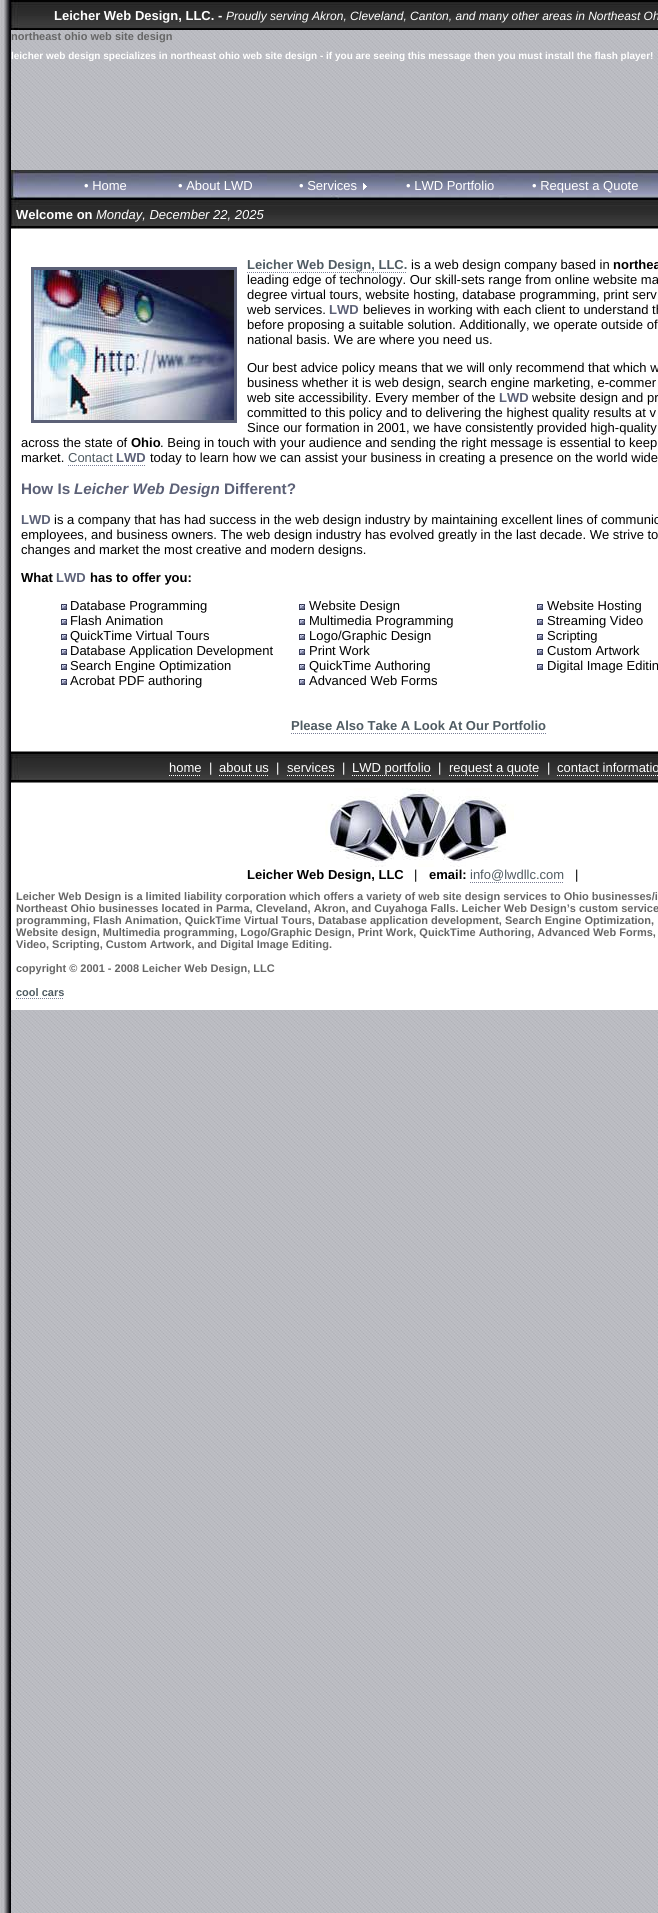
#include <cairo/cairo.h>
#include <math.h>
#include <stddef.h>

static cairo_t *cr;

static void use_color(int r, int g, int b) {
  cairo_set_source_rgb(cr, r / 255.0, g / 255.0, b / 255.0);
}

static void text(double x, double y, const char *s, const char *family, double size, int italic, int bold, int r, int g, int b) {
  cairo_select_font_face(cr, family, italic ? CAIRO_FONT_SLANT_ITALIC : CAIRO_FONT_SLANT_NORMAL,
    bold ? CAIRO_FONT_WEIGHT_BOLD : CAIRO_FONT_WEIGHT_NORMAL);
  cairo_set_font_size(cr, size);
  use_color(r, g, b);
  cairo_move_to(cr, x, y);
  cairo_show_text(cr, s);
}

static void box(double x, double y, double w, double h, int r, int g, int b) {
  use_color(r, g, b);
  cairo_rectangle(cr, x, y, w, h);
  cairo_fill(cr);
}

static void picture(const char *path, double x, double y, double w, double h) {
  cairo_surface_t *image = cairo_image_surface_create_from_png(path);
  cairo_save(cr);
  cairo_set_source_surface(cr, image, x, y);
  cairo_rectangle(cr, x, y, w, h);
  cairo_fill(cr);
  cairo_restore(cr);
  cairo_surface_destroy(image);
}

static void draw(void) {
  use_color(255, 255, 255);
  cairo_paint(cr);
  picture("img_01.png", 11, 30, 647, 1883);
  picture("img_02.png", 0, 0, 11, 1913);
  picture("img_03.png", 11, 0, 647, 30);
  picture("img_04.png", 11, 170, 647, 29);
  picture("img_05.png", 363, 183, 4, 7);
  picture("img_06.png", 11, 199, 647, 30);
  box(11, 229, 647, 522, 255, 255, 255);
  cairo_new_path(cr);
  cairo_move_to(cr, 247, 272.5);
  cairo_line_to(cr, 407, 272.5);
  use_color(120, 125, 149);
  cairo_set_line_width(cr, 1);
  cairo_set_dash(cr, (double[]){1, 1}, 2, 0);
  cairo_stroke(cr);
  cairo_rectangle(cr, 32.5, 268.5, 203, 153);
  use_color(92, 97, 119);
  cairo_set_line_width(cr, 3);
  cairo_set_dash(cr, NULL, 0, 0);
  cairo_stroke(cr);
  picture("img_07.png", 34, 270, 200, 150);
  cairo_new_path(cr);
  cairo_move_to(cr, 68, 465.5);
  cairo_line_to(cr, 116, 465.5);
  use_color(120, 125, 149);
  cairo_set_line_width(cr, 1);
  cairo_set_dash(cr, (double[]){1, 1}, 2, 0);
  cairo_stroke(cr);
  cairo_new_path(cr);
  cairo_move_to(cr, 116, 465.5);
  cairo_line_to(cr, 146, 465.5);
  cairo_stroke(cr);
  picture("img_08.png", 61, 604, 6, 6);
  picture("img_08.png", 61, 619, 6, 6);
  picture("img_08.png", 61, 634, 6, 6);
  picture("img_08.png", 61, 649, 6, 6);
  picture("img_08.png", 61, 664, 6, 6);
  picture("img_08.png", 61, 679, 6, 6);
  picture("img_08.png", 299, 604, 6, 6);
  picture("img_08.png", 299, 619, 6, 6);
  picture("img_08.png", 299, 634, 6, 6);
  picture("img_08.png", 299, 649, 6, 6);
  picture("img_08.png", 299, 664, 6, 6);
  picture("img_08.png", 299, 679, 6, 6);
  picture("img_08.png", 537, 604, 6, 6);
  picture("img_08.png", 537, 619, 6, 6);
  picture("img_08.png", 537, 634, 6, 6);
  picture("img_08.png", 537, 649, 6, 6);
  picture("img_08.png", 537, 664, 6, 6);
  cairo_new_path(cr);
  cairo_move_to(cr, 291, 733.5);
  cairo_line_to(cr, 546, 733.5);
  cairo_stroke(cr);
  picture("img_09.png", 11, 751, 647, 32);
  cairo_new_path(cr);
  cairo_move_to(cr, 169, 775.5);
  cairo_line_to(cr, 201, 775.5);
  use_color(255, 255, 255);
  cairo_stroke(cr);
  cairo_new_path(cr);
  cairo_move_to(cr, 219, 775.5);
  cairo_line_to(cr, 269, 775.5);
  cairo_stroke(cr);
  cairo_new_path(cr);
  cairo_move_to(cr, 287, 775.5);
  cairo_line_to(cr, 335, 775.5);
  cairo_stroke(cr);
  cairo_new_path(cr);
  cairo_move_to(cr, 352, 775.5);
  cairo_line_to(cr, 431, 775.5);
  cairo_stroke(cr);
  cairo_new_path(cr);
  cairo_move_to(cr, 449, 775.5);
  cairo_line_to(cr, 539, 775.5);
  cairo_stroke(cr);
  cairo_new_path(cr);
  cairo_move_to(cr, 557, 775.5);
  cairo_line_to(cr, 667, 775.5);
  cairo_stroke(cr);
  box(11, 783, 647, 227, 255, 255, 255);
  picture("img_10.png", 325, 788, 189, 79);
  cairo_new_path(cr);
  cairo_move_to(cr, 470, 882.5);
  cairo_line_to(cr, 564, 882.5);
  use_color(120, 125, 149);
  cairo_stroke(cr);
  cairo_new_path(cr);
  cairo_move_to(cr, 16, 998.5);
  cairo_line_to(cr, 64, 998.5);
  cairo_stroke(cr);
  text(54, 20, "Leicher Web Design, LLC. -", "Liberation Sans", 13, 0, 1, 255, 255, 255);
  text(226, 20, "Proudly serving Akron, Cleveland, Canton, and many other areas in Northeast Oh", "Liberation Sans", 12, 1, 0, 255, 255, 255);
  text(11, 40, "northeast ohio web site design", "Liberation Sans", 11, 0, 1, 102, 102, 102);
  text(11, 59, "leicher web design specializes in northeast ohio web site design - if you are seeing this message then you must install the flash player!", "Liberation Sans", 10, 0, 1, 255, 255, 255);
  text(84, 190, "• Home", "Liberation Sans", 13, 0, 0, 255, 255, 255);
  text(178, 190, "• About LWD", "Liberation Sans", 13, 0, 0, 255, 255, 255);
  text(299, 190, "• Services", "Liberation Sans", 13, 0, 0, 255, 255, 255);
  text(406, 190, "• LWD Portfolio", "Liberation Sans", 13, 0, 0, 255, 255, 255);
  text(532, 190, "• Request a Quote", "Liberation Sans", 13, 0, 0, 255, 255, 255);
  text(16, 219, "Welcome on", "Liberation Sans", 13, 0, 1, 255, 255, 255);
  text(96, 219, "Monday, December 22, 2025", "Liberation Sans", 13, 1, 0, 255, 255, 255);
  text(247, 269, "Leicher Web Design, LLC.", "Liberation Sans", 13, 0, 1, 79, 91, 98);
  text(411, 269, "is a web design company based in", "Liberation Sans", 13, 0, 0, 0, 0, 0);
  text(613, 269, "northea", "Liberation Sans", 13, 0, 1, 0, 0, 0);
  text(247, 284, "leading edge of technology. Our skill-sets range from online website ma", "Liberation Sans", 13, 0, 0, 0, 0, 0);
  text(247, 299, "degree virtual tours, website hosting, database programming, print serv", "Liberation Sans", 13, 0, 0, 0, 0, 0);
  text(247, 314, "web services.", "Liberation Sans", 13, 0, 0, 0, 0, 0);
  text(329, 314, "LWD", "Liberation Sans", 13, 0, 1, 92, 97, 119);
  text(363, 314, "believes in working with each client to understand th", "Liberation Sans", 13, 0, 0, 0, 0, 0);
  text(247, 329, "before proposing a suitable solution. Additionally, we operate outside of", "Liberation Sans", 13, 0, 0, 0, 0, 0);
  text(247, 344, "national basis. We are where you need us.", "Liberation Sans", 13, 0, 0, 0, 0, 0);
  text(247, 372, "Our best advice policy means that we will only recommend that which w", "Liberation Sans", 13, 0, 0, 0, 0, 0);
  text(247, 387, "business whether it is web design, search engine marketing, e-commer", "Liberation Sans", 13, 0, 0, 0, 0, 0);
  text(247, 402, "web site accessibility. Every member of the", "Liberation Sans", 13, 0, 0, 0, 0, 0);
  text(499, 402, "LWD", "Liberation Sans", 13, 0, 1, 92, 97, 119);
  text(532, 402, "website design and pr", "Liberation Sans", 13, 0, 0, 0, 0, 0);
  text(247, 417, "committed to this policy and to delivering the highest quality results at v", "Liberation Sans", 13, 0, 0, 0, 0, 0);
  text(247, 432, "Since our formation in 2001, we have consistently provided high-quality", "Liberation Sans", 13, 0, 0, 0, 0, 0);
  text(21, 447, "across the state of", "Liberation Sans", 13, 0, 0, 0, 0, 0);
  text(131, 447, "Ohio", "Liberation Sans", 13, 0, 1, 0, 0, 0);
  text(160, 447, ". Being in touch with your audience and sending the right message is essential to keep", "Liberation Sans", 13, 0, 0, 0, 0, 0);
  text(21, 462, "market.", "Liberation Sans", 13, 0, 0, 0, 0, 0);
  text(68, 462, "Contact", "Liberation Sans", 13, 0, 0, 79, 91, 98);
  text(116, 462, "LWD", "Liberation Sans", 13, 0, 1, 92, 97, 119);
  text(150, 462, "today to learn how we can assist your business in creating a presence on the world wide", "Liberation Sans", 13, 0, 0, 0, 0, 0);
  text(21, 494, "How Is", "Liberation Sans", 15.25, 0, 1, 92, 97, 119);
  text(74, 494, "Leicher Web Design", "Liberation Sans", 15.25, 1, 1, 92, 97, 119);
  text(224, 494, "Different?", "Liberation Sans", 15.25, 0, 1, 92, 97, 119);
  text(21, 524, "LWD", "Liberation Sans", 13, 0, 1, 92, 97, 119);
  text(54, 524, "is a company that has had success in the web design industry by maintaining excellent lines of communic", "Liberation Sans", 13, 0, 0, 0, 0, 0);
  text(21, 539, "employees, and business owners. The web design industry has evolved greatly in the last decade. We strive to", "Liberation Sans", 13, 0, 0, 0, 0, 0);
  text(21, 554, "changes and market the most creative and modern designs.", "Liberation Sans", 13, 0, 0, 0, 0, 0);
  text(21, 582, "What", "Liberation Sans", 13, 0, 1, 0, 0, 0);
  text(56, 582, "LWD", "Liberation Sans", 13, 0, 1, 92, 97, 119);
  text(90, 582, "has to offer you:", "Liberation Sans", 13, 0, 1, 0, 0, 0);
  text(70, 610, "Database Programming", "Liberation Sans", 13, 0, 0, 0, 0, 0);
  text(70, 625, "Flash Animation", "Liberation Sans", 13, 0, 0, 0, 0, 0);
  text(70, 640, "QuickTime Virtual Tours", "Liberation Sans", 13, 0, 0, 0, 0, 0);
  text(70, 655, "Database Application Development", "Liberation Sans", 13, 0, 0, 0, 0, 0);
  text(70, 670, "Search Engine Optimization", "Liberation Sans", 13, 0, 0, 0, 0, 0);
  text(70, 685, "Acrobat PDF authoring", "Liberation Sans", 13, 0, 0, 0, 0, 0);
  text(309, 610, "Website Design", "Liberation Sans", 13, 0, 0, 0, 0, 0);
  text(309, 625, "Multimedia Programming", "Liberation Sans", 13, 0, 0, 0, 0, 0);
  text(309, 640, "Logo/Graphic Design", "Liberation Sans", 13, 0, 0, 0, 0, 0);
  text(309, 655, "Print Work", "Liberation Sans", 13, 0, 0, 0, 0, 0);
  text(309, 670, "QuickTime Authoring", "Liberation Sans", 13, 0, 0, 0, 0, 0);
  text(309, 685, "Advanced Web Forms", "Liberation Sans", 13, 0, 0, 0, 0, 0);
  text(547, 610, "Website Hosting", "Liberation Sans", 13, 0, 0, 0, 0, 0);
  text(547, 625, "Streaming Video", "Liberation Sans", 13, 0, 0, 0, 0, 0);
  text(547, 640, "Scripting", "Liberation Sans", 13, 0, 0, 0, 0, 0);
  text(547, 655, "Custom Artwork", "Liberation Sans", 13, 0, 0, 0, 0, 0);
  text(547, 670, "Digital Image Editin", "Liberation Sans", 13, 0, 0, 0, 0, 0);
  text(291, 730, "Please Also Take A Look At Our Portfolio", "Liberation Sans", 13, 0, 1, 79, 91, 98);
  text(169, 772, "home", "Liberation Sans", 13, 0, 0, 255, 255, 255);
  text(209, 772, "|", "Liberation Sans", 13, 0, 0, 255, 255, 255);
  text(219, 772, "about us", "Liberation Sans", 13, 0, 0, 255, 255, 255);
  text(276, 772, "|", "Liberation Sans", 13, 0, 0, 255, 255, 255);
  text(287, 772, "services", "Liberation Sans", 13, 0, 0, 255, 255, 255);
  text(342, 772, "|", "Liberation Sans", 13, 0, 0, 255, 255, 255);
  text(352, 772, "LWD portfolio", "Liberation Sans", 13, 0, 0, 255, 255, 255);
  text(438, 772, "|", "Liberation Sans", 13, 0, 0, 255, 255, 255);
  text(449, 772, "request a quote", "Liberation Sans", 13, 0, 0, 255, 255, 255);
  text(547, 772, "|", "Liberation Sans", 13, 0, 0, 255, 255, 255);
  text(557, 772, "contact informatio", "Liberation Sans", 13, 0, 0, 255, 255, 255);
  text(247, 879, "Leicher Web Design, LLC", "Liberation Sans", 13, 0, 1, 0, 0, 0);
  text(414, 879, "|", "Liberation Sans", 13, 0, 0, 0, 0, 0);
  text(429, 879, "email:", "Liberation Sans", 13, 0, 1, 0, 0, 0);
  text(470, 879, "info@lwdllc.com", "Liberation Sans", 13, 0, 0, 79, 91, 98);
  text(575, 879, "|", "Liberation Sans", 13, 0, 0, 0, 0, 0);
  text(16, 900, "Leicher Web Design is a limited liability corporation which offers a variety of web site design services to Ohio businesses/i", "Liberation Sans", 11, 0, 1, 102, 102, 102);
  text(16, 912, "Northeast Ohio businesses located in Parma, Cleveland, Akron, and Cuyahoga Falls. Leicher Web Design’s custom service", "Liberation Sans", 11, 0, 1, 102, 102, 102);
  text(16, 924, "programming, Flash Animation, QuickTime Virtual Tours, Database application development, Search Engine Optimization,", "Liberation Sans", 11, 0, 1, 102, 102, 102);
  text(16, 936, "Website design, Multimedia programming, Logo/Graphic Design, Print Work, QuickTime Authoring, Advanced Web Forms,", "Liberation Sans", 11, 0, 1, 102, 102, 102);
  text(16, 948, "Video, Scripting, Custom Artwork, and Digital Image Editing.", "Liberation Sans", 11, 0, 1, 102, 102, 102);
  text(16, 972, "copyright © 2001 - 2008 Leicher Web Design, LLC", "Liberation Sans", 11, 0, 1, 102, 102, 102);
  text(16, 996, "cool cars", "Liberation Sans", 11, 0, 1, 79, 91, 98);
}

int main(void) {
  cairo_surface_t *surface = cairo_image_surface_create(CAIRO_FORMAT_RGB24, 658, 1913);
  cr = cairo_create(surface);
  cairo_font_options_t *options = cairo_font_options_create();
  cairo_font_options_set_hint_metrics(options, CAIRO_HINT_METRICS_OFF);
  cairo_font_options_set_hint_style(options, CAIRO_HINT_STYLE_NONE);
  cairo_set_font_options(cr, options);
  cairo_set_miter_limit(cr, 4);
  draw();
  cairo_surface_write_to_png(surface, "out.png");
  cairo_font_options_destroy(options);
  cairo_destroy(cr);
  cairo_surface_destroy(surface);
  return 0;
}
